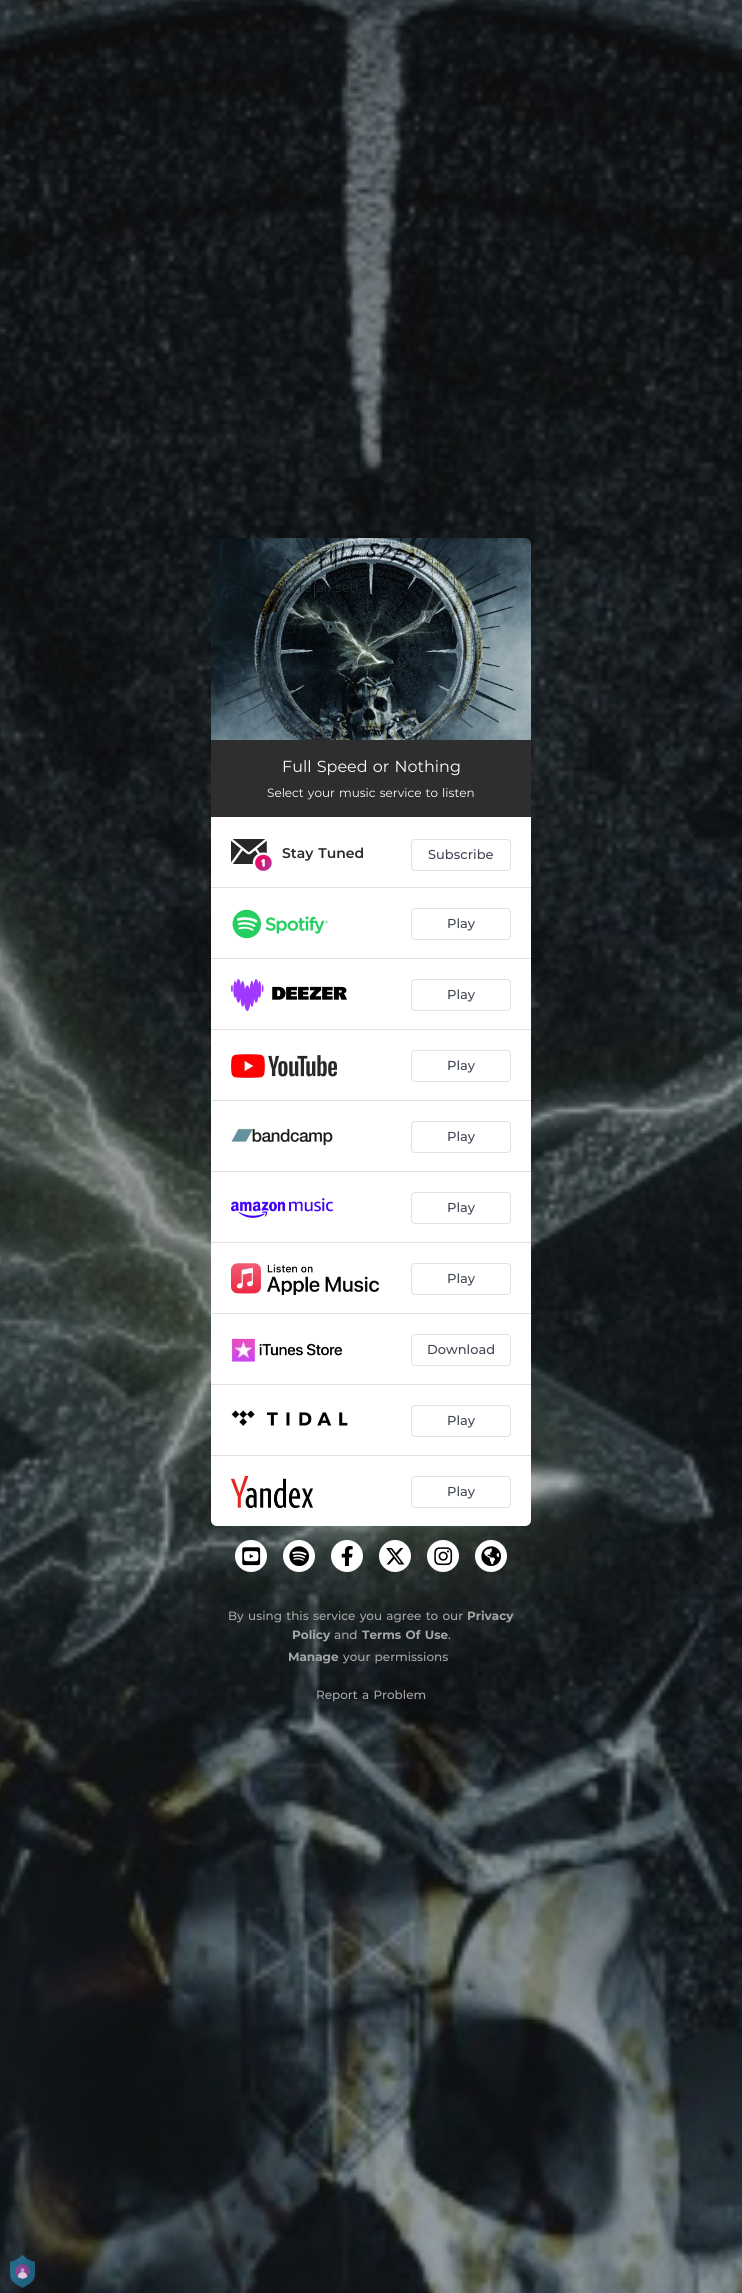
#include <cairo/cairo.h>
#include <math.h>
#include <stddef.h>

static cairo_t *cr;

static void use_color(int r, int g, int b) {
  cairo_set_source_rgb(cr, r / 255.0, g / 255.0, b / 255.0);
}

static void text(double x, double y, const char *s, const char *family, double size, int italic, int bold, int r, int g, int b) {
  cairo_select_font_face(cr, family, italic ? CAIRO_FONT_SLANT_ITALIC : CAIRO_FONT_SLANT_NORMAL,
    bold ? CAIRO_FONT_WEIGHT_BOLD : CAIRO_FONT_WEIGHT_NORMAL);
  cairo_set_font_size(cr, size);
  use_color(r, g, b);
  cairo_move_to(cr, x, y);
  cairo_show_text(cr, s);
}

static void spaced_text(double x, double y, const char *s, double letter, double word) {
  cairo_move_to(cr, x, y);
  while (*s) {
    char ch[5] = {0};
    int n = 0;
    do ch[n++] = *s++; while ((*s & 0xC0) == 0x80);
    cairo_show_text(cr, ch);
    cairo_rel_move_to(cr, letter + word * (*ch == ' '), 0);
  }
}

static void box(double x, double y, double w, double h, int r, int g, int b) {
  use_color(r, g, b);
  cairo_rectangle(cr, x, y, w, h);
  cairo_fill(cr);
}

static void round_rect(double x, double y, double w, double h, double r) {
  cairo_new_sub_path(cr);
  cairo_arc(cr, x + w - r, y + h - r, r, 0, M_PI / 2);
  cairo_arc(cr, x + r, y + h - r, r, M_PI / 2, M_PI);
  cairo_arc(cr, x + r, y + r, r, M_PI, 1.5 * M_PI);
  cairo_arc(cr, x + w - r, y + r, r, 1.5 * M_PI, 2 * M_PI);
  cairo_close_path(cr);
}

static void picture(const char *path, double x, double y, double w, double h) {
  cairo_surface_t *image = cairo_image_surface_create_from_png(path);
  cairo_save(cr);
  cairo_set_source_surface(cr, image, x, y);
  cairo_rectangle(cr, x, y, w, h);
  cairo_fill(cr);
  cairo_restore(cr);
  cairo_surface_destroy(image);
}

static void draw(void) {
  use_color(255, 255, 255);
  cairo_paint(cr);
  picture("img_01.png", 0, 0, 742, 2293);
  picture("img_02.png", 211, 538, 320, 202);
  box(211, 740, 320, 77, 46, 46, 46);
  use_color(255, 255, 255);
  cairo_new_path(cr);
  cairo_move_to(cr, 211, 817);
  cairo_line_to(cr, 531, 817);
  cairo_line_to(cr, 531, 1520);
  cairo_curve_to(cr, 531, 1523.5, 528.5, 1526, 525, 1526);
  cairo_line_to(cr, 217, 1526);
  cairo_curve_to(cr, 213.5, 1526, 211, 1523.5, 211, 1520);
  cairo_close_path(cr);
  cairo_fill(cr);
  box(211, 887, 320, 1, 225, 225, 228);
  picture("img_03.png", 231, 839, 41, 32);
  round_rect(411.5, 839.5, 99, 31, 3.5);
  cairo_set_line_width(cr, 1);
  cairo_stroke(cr);
  box(211, 958, 320, 1, 225, 225, 228);
  picture("img_04.png", 232, 909, 96, 30);
  round_rect(411.5, 908.5, 99, 31, 3.5);
  cairo_stroke(cr);
  box(211, 1029, 320, 1, 225, 225, 228);
  picture("img_05.png", 231, 979, 116, 32);
  round_rect(411.5, 979.5, 99, 31, 3.5);
  cairo_stroke(cr);
  box(211, 1100, 320, 1, 225, 225, 228);
  picture("img_06.png", 231, 1054, 106, 24);
  round_rect(411.5, 1050.5, 99, 31, 3.5);
  cairo_stroke(cr);
  box(211, 1171, 320, 1, 225, 225, 228);
  picture("img_07.png", 231, 1128, 102, 18);
  round_rect(411.5, 1121.5, 99, 31, 3.5);
  cairo_stroke(cr);
  box(211, 1242, 320, 1, 225, 225, 228);
  picture("img_08.png", 231, 1198, 102, 20);
  round_rect(411.5, 1192.5, 99, 31, 3.5);
  cairo_stroke(cr);
  box(211, 1313, 320, 1, 225, 225, 228);
  picture("img_09.png", 231, 1263, 148, 32);
  round_rect(411.5, 1263.5, 99, 31, 3.5);
  cairo_stroke(cr);
  box(211, 1384, 320, 1, 225, 225, 228);
  picture("img_10.png", 232, 1338, 111, 24);
  round_rect(411.5, 1334.5, 99, 31, 3.5);
  cairo_stroke(cr);
  box(211, 1455, 320, 1, 225, 225, 228);
  picture("img_11.png", 231, 1410, 117, 16);
  round_rect(411.5, 1405.5, 99, 31, 3.5);
  cairo_stroke(cr);
  picture("img_12.png", 231, 1476, 82, 32);
  round_rect(411.5, 1476.5, 99, 31, 3.5);
  cairo_stroke(cr);
  use_color(255, 255, 255);
  cairo_arc(cr, 251, 1556, 16, 0, 2 * M_PI);
  cairo_fill(cr);
  picture("img_13.png", 242, 1547, 19, 19);
  cairo_arc(cr, 299, 1556, 16, 0, 2 * M_PI);
  cairo_fill(cr);
  picture("img_14.png", 289, 1546, 20, 20);
  cairo_arc(cr, 347, 1556, 16, 0, 2 * M_PI);
  cairo_fill(cr);
  picture("img_15.png", 341, 1546, 12, 20);
  cairo_arc(cr, 395, 1556, 16, 0, 2 * M_PI);
  cairo_fill(cr);
  picture("img_16.png", 386, 1547, 19, 18);
  cairo_arc(cr, 443, 1556, 16, 0, 2 * M_PI);
  cairo_fill(cr);
  picture("img_17.png", 434, 1547, 19, 19);
  cairo_arc(cr, 491, 1556, 16, 0, 2 * M_PI);
  cairo_fill(cr);
  picture("img_18.png", 481, 1546, 20, 20);
  picture("img_19.png", 10, 2255, 25, 33);
  cairo_select_font_face(cr, "Montserrat", CAIRO_FONT_SLANT_NORMAL, CAIRO_FONT_WEIGHT_NORMAL);
  cairo_set_font_size(cr, 13);
  use_color(32, 40, 43);
  spaced_text(271, 592, "You're all set!", 0, 1);
  cairo_set_font_size(cr, 16);
  use_color(255, 255, 255);
  spaced_text(282, 772, "Full Speed or Nothing", 0, 1);
  cairo_set_font_size(cr, 12);
  spaced_text(267, 797, "Select your music service to listen", 0, 1);
  cairo_select_font_face(cr, "Montserrat SemiBold", CAIRO_FONT_SLANT_NORMAL, CAIRO_FONT_WEIGHT_NORMAL);
  cairo_set_font_size(cr, 14);
  use_color(40, 40, 40);
  spaced_text(282, 858, "Stay Tuned", 0, 1);
  text(428, 859, "Subscribe", "Montserrat Medium", 13, 0, 0, 65, 71, 84);
  text(447, 928, "Play", "Montserrat Medium", 13, 0, 0, 65, 71, 84);
  text(447, 999, "Play", "Montserrat Medium", 13, 0, 0, 65, 71, 84);
  text(447, 1070, "Play", "Montserrat Medium", 13, 0, 0, 65, 71, 84);
  text(447, 1141, "Play", "Montserrat Medium", 13, 0, 0, 65, 71, 84);
  text(447, 1212, "Play", "Montserrat Medium", 13, 0, 0, 65, 71, 84);
  text(447, 1283, "Play", "Montserrat Medium", 13, 0, 0, 65, 71, 84);
  text(427, 1354, "Download", "Montserrat Medium", 13, 0, 0, 65, 71, 84);
  text(447, 1425, "Play", "Montserrat Medium", 13, 0, 0, 65, 71, 84);
  text(447, 1496, "Play", "Montserrat Medium", 13, 0, 0, 65, 71, 84);
  cairo_set_font_size(cr, 12);
  use_color(164, 167, 167);
  spaced_text(228, 1620, "By using this service you agree to our", 0, 1);
  text(467, 1620, "Privacy", "Montserrat", 12, 0, 1, 164, 167, 167);
  text(292, 1639, "Policy", "Montserrat", 12, 0, 1, 164, 167, 167);
  text(334, 1639, "and", "Montserrat Medium", 12, 0, 0, 164, 167, 167);
  cairo_select_font_face(cr, "Montserrat", CAIRO_FONT_SLANT_NORMAL, CAIRO_FONT_WEIGHT_BOLD);
  spaced_text(362, 1639, "Terms Of Use", 0, 1);
  text(448, 1639, ".", "Montserrat Medium", 12, 0, 0, 164, 167, 167);
  text(288, 1661, "Manage", "Montserrat", 12, 0, 1, 164, 167, 167);
  cairo_select_font_face(cr, "Montserrat Medium", CAIRO_FONT_SLANT_NORMAL, CAIRO_FONT_WEIGHT_NORMAL);
  spaced_text(343, 1661, "your permissions", 0, 1);
  spaced_text(316, 1699, "Report a Problem", 0, 1);
}

int main(void) {
  cairo_surface_t *surface = cairo_image_surface_create(CAIRO_FORMAT_RGB24, 742, 2293);
  cr = cairo_create(surface);
  cairo_font_options_t *options = cairo_font_options_create();
  cairo_font_options_set_hint_metrics(options, CAIRO_HINT_METRICS_OFF);
  cairo_font_options_set_hint_style(options, CAIRO_HINT_STYLE_NONE);
  cairo_set_font_options(cr, options);
  cairo_set_miter_limit(cr, 4);
  draw();
  cairo_surface_write_to_png(surface, "out.png");
  cairo_font_options_destroy(options);
  cairo_destroy(cr);
  cairo_surface_destroy(surface);
  return 0;
}
